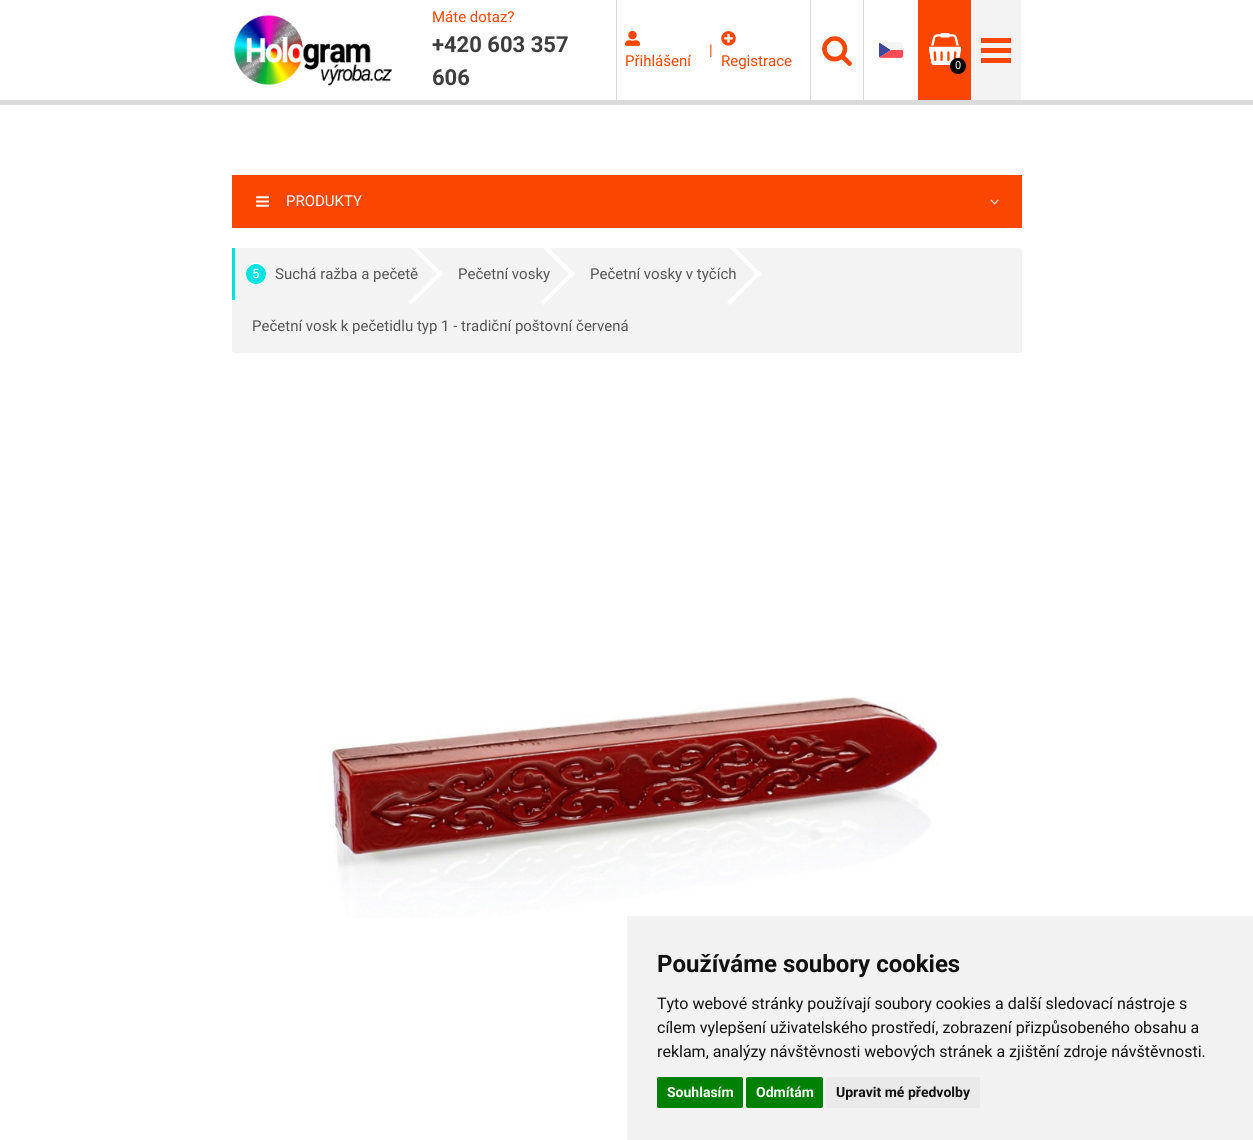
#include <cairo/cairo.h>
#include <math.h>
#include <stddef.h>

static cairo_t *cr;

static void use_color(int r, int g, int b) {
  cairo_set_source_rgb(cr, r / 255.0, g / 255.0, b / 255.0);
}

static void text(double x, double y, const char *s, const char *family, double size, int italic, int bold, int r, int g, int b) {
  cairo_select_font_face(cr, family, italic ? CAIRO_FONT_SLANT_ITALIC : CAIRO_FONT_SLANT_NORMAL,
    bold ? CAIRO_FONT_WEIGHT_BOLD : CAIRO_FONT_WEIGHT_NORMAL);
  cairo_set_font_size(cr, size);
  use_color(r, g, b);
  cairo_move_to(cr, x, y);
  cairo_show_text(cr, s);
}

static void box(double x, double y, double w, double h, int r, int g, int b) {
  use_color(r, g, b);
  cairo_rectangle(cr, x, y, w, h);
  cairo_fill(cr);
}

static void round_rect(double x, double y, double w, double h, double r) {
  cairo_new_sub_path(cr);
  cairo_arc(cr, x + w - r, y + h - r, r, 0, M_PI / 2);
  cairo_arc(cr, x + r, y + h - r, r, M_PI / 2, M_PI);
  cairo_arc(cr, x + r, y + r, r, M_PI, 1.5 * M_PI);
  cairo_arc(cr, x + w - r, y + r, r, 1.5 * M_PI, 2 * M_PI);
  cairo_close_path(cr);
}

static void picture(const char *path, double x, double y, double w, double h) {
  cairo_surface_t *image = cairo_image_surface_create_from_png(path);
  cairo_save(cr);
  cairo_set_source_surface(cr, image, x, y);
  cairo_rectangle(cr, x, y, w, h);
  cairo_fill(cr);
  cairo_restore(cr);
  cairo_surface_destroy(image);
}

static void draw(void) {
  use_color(255, 255, 255);
  cairo_paint(cr);
  box(0, 100, 1253, 5, 218, 218, 218);
  picture("img_01.png", 234, 15, 158, 71);
  box(616, 0, 1, 100, 218, 218, 218);
  picture("img_02.png", 625, 30, 15, 16);
  picture("img_03.png", 721, 31, 15, 15);
  box(863, 0, 1, 100, 218, 218, 218);
  box(810, 0, 1, 100, 218, 218, 218);
  picture("img_04.png", 822, 36, 30, 30);
  picture("img_05.png", 879, 42, 24, 16);
  box(918, 0, 53, 100, 250, 70, 0);
  picture("img_06.png", 929, 33, 32, 32);
  use_color(0, 0, 0);
  cairo_arc(cr, 958, 66, 8, 0, 2 * M_PI);
  cairo_fill(cr);
  box(971, 0, 50, 100, 243, 243, 243);
  box(981, 38, 30, 5, 250, 70, 0);
  box(981, 48, 30, 5, 250, 70, 0);
  box(981, 58, 30, 5, 250, 70, 0);
  box(232, 175, 790, 53, 250, 70, 0);
  picture("img_07.png", 256, 196, 13, 11);
  picture("img_08.png", 990, 199, 9, 6);
  use_color(243, 243, 243);
  round_rect(232, 248, 790, 105, 2.5);
  cairo_fill(cr);
  box(232, 248, 3, 52, 0, 226, 225);
  cairo_arc(cr, 256, 274, 10.5, 0, 2 * M_PI);
  cairo_fill_preserve(cr);
  use_color(255, 255, 255);
  cairo_set_line_width(cr, 1);
  cairo_stroke(cr);
  picture("img_09.png", 330, 696, 610, 222);
  box(627, 916, 626, 224, 242, 242, 242);
  use_color(0, 128, 0);
  round_rect(657, 1077, 86, 31, 2);
  cairo_fill(cr);
  round_rect(746, 1077, 77, 31, 2);
  cairo_fill(cr);
  use_color(234, 234, 234);
  round_rect(826, 1077, 154, 31, 2);
  cairo_fill(cr);
  text(432, 22, "Máte dotaz?", "Roboto", 15, 0, 0, 250, 70, 0);
  text(432, 52, "+420 603 357", "Roboto", 22, 0, 1, 61, 61, 61);
  text(432, 85, "606", "Roboto", 22, 0, 1, 61, 61, 61);
  text(709, 55, "|", "Roboto", 15, 0, 0, 250, 70, 0);
  text(625, 66, "Přihlášení", "Roboto", 15, 0, 0, 250, 70, 0);
  text(721, 66, "Registrace", "Roboto", 15, 0, 0, 250, 70, 0);
  text(955, 69, "0", "Roboto", 11, 0, 0, 255, 255, 255);
  text(286, 206, "PRODUKTY", "Roboto", 15, 0, 0, 255, 255, 255);
  text(252, 278, "5", "Roboto", 13, 0, 0, 255, 255, 255);
  text(275, 279, "Suchá ražba a pečetě", "Roboto", 15, 0, 0, 85, 85, 85);
  use_color(255, 255, 255);
  cairo_new_path(cr);
  cairo_move_to(cr, 440, 270.5);
  cairo_line_to(cr, 443, 273.5);
  cairo_line_to(cr, 411, 305);
  cairo_line_to(cr, 408.5, 302);
  cairo_close_path(cr);
  cairo_fill(cr);
  cairo_new_path(cr);
  cairo_move_to(cr, 408.5, 245.5);
  cairo_line_to(cr, 411, 242.5);
  cairo_line_to(cr, 443, 274);
  cairo_line_to(cr, 440, 277);
  cairo_close_path(cr);
  cairo_fill(cr);
  text(458, 279, "Pečetní vosky", "Roboto", 15, 0, 0, 85, 85, 85);
  use_color(255, 255, 255);
  cairo_new_path(cr);
  cairo_move_to(cr, 572, 270.5);
  cairo_line_to(cr, 575, 273.5);
  cairo_line_to(cr, 543.5, 305);
  cairo_line_to(cr, 540.5, 302);
  cairo_close_path(cr);
  cairo_fill(cr);
  cairo_new_path(cr);
  cairo_move_to(cr, 540.5, 245.5);
  cairo_line_to(cr, 543.5, 242.5);
  cairo_line_to(cr, 575, 274);
  cairo_line_to(cr, 572, 277);
  cairo_close_path(cr);
  cairo_fill(cr);
  text(590, 279, "Pečetní vosky v tyčích", "Roboto", 15, 0, 0, 85, 85, 85);
  use_color(255, 255, 255);
  cairo_new_path(cr);
  cairo_move_to(cr, 758.5, 270.5);
  cairo_line_to(cr, 761.5, 273.5);
  cairo_line_to(cr, 730, 305);
  cairo_line_to(cr, 727, 302);
  cairo_close_path(cr);
  cairo_fill(cr);
  cairo_new_path(cr);
  cairo_move_to(cr, 727, 245.5);
  cairo_line_to(cr, 730, 242.5);
  cairo_line_to(cr, 761.5, 274);
  cairo_line_to(cr, 758.5, 277);
  cairo_close_path(cr);
  cairo_fill(cr);
  text(252, 331, "Pečetní vosk k pečetidlu typ 1 - tradiční poštovní červená", "Roboto", 15, 0, 0, 85, 85, 85);
  text(657, 972, "Používáme soubory cookies", "Roboto", 24, 0, 1, 17, 17, 17);
  text(657, 1009, "Tyto webové stránky používají soubory cookies a další sledovací nástroje s", "Roboto", 16, 0, 0, 17, 17, 17);
  text(657, 1033, "cílem vylepšení uživatelského prostředí, zobrazení přizpůsobeného obsahu a", "Roboto", 16, 0, 0, 17, 17, 17);
  text(657, 1057, "reklam, analýzy návštěvnosti webových stránek a zjištění zdroje návštěvnosti.", "Roboto", 16, 0, 0, 17, 17, 17);
  text(667, 1097, "Souhlasím", "Roboto", 14, 0, 1, 255, 255, 255);
  text(756, 1097, "Odmítám", "Roboto", 14, 0, 1, 255, 255, 255);
  text(836, 1097, "Upravit mé předvolby", "Roboto", 14, 0, 1, 17, 17, 17);
}

int main(void) {
  cairo_surface_t *surface = cairo_image_surface_create(CAIRO_FORMAT_RGB24, 1253, 1140);
  cr = cairo_create(surface);
  cairo_font_options_t *options = cairo_font_options_create();
  cairo_font_options_set_hint_metrics(options, CAIRO_HINT_METRICS_OFF);
  cairo_font_options_set_hint_style(options, CAIRO_HINT_STYLE_NONE);
  cairo_set_font_options(cr, options);
  cairo_set_miter_limit(cr, 4);
  draw();
  cairo_surface_write_to_png(surface, "out.png");
  cairo_font_options_destroy(options);
  cairo_destroy(cr);
  cairo_surface_destroy(surface);
  return 0;
}
